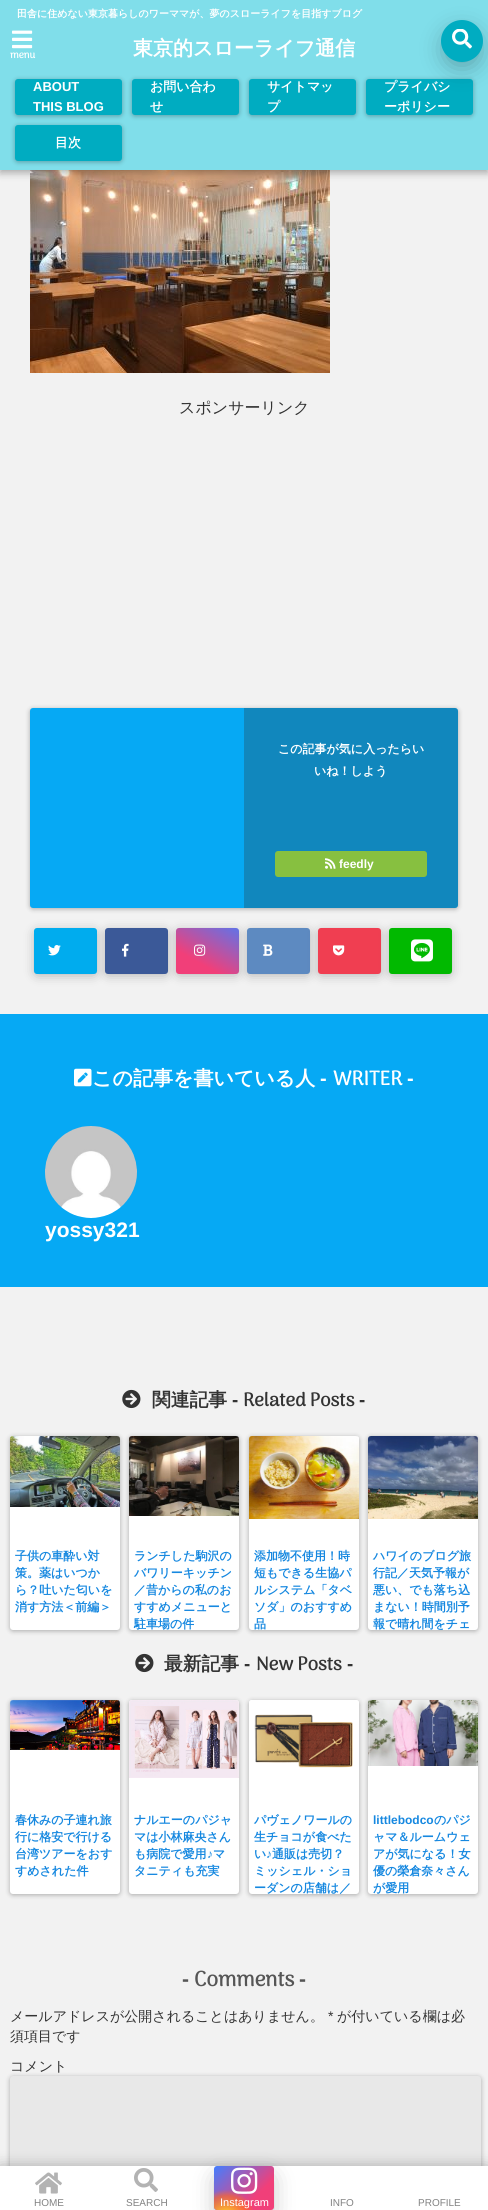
#include <cairo/cairo.h>
#include <math.h>
#include <stddef.h>

static cairo_t *cr;

static void use_color(int r, int g, int b) {
  cairo_set_source_rgb(cr, r / 255.0, g / 255.0, b / 255.0);
}

static void text(double x, double y, const char *s, const char *family, double size, int italic, int bold, int r, int g, int b) {
  cairo_select_font_face(cr, family, italic ? CAIRO_FONT_SLANT_ITALIC : CAIRO_FONT_SLANT_NORMAL,
    bold ? CAIRO_FONT_WEIGHT_BOLD : CAIRO_FONT_WEIGHT_NORMAL);
  cairo_set_font_size(cr, size);
  use_color(r, g, b);
  cairo_move_to(cr, x, y);
  cairo_show_text(cr, s);
}

static void box(double x, double y, double w, double h, int r, int g, int b) {
  use_color(r, g, b);
  cairo_rectangle(cr, x, y, w, h);
  cairo_fill(cr);
}

static void round_rect(double x, double y, double w, double h, double r) {
  cairo_new_sub_path(cr);
  cairo_arc(cr, x + w - r, y + h - r, r, 0, M_PI / 2);
  cairo_arc(cr, x + r, y + h - r, r, M_PI / 2, M_PI);
  cairo_arc(cr, x + r, y + r, r, M_PI, 1.5 * M_PI);
  cairo_arc(cr, x + w - r, y + r, r, 1.5 * M_PI, 2 * M_PI);
  cairo_close_path(cr);
}

static void shadow(double x, double y, double w, double h, double r, double blur, double alpha) {
  cairo_push_group_with_content(cr, CAIRO_CONTENT_ALPHA);
  cairo_set_operator(cr, CAIRO_OPERATOR_SOURCE);
  for (int i = 15; i >= -15 && fmin(w, h) + blur * i / 3 > 0; i -= 2) {
    double e = blur * i / 6;
    cairo_set_source_rgba(cr, 0, 0, 0, alpha * erfc((i - 1) / 8.5) / 2);
    round_rect(x - e, y - e, w + 2 * e, h + 2 * e, fmax(0, fmin(r + e + blur * .6, fmin(w, h) / 2 + e)));
    cairo_fill(cr);
  }
  cairo_pattern_t *soft = cairo_pop_group(cr);
  cairo_mask(cr, soft);
  cairo_pattern_destroy(soft);
}

static void picture(const char *path, double x, double y, double w, double h) {
  cairo_surface_t *image = cairo_image_surface_create_from_png(path);
  cairo_save(cr);
  cairo_set_source_surface(cr, image, x, y);
  cairo_rectangle(cr, x, y, w, h);
  cairo_fill(cr);
  cairo_restore(cr);
  cairo_surface_destroy(image);
}

static void draw(void) {
  cairo_pattern_t *gradient;
  use_color(242, 242, 242);
  cairo_paint(cr);
  picture("img_03.png", 30, 170, 300, 203);
  use_color(0, 0, 0);
  shadow(0, 3, 488, 170, 0, 4, 0.3);
  box(0, 0, 488, 170, 128, 222, 234);
  picture("img_01.png", 12, 30, 21, 19);
  use_color(0, 0, 0);
  shadow(366, 80, 107, 36, 3, 2.5, 0.3);
  use_color(0, 172, 193);
  round_rect(366, 79, 107, 36, 3);
  cairo_fill(cr);
  use_color(0, 0, 0);
  shadow(446, 33, 32, 32, 16, 12.5, 0.3);
  use_color(0, 172, 193);
  cairo_arc(cr, 462, 41, 21, 0, 2 * M_PI);
  cairo_fill(cr);
  picture("img_02.png", 452, 29, 20, 20);
  use_color(0, 0, 0);
  shadow(15, 80, 107, 36, 3, 2.5, 0.3);
  use_color(0, 172, 193);
  round_rect(15, 79, 107, 36, 3);
  cairo_fill(cr);
  use_color(0, 0, 0);
  shadow(132, 80, 107, 36, 3, 2.5, 0.3);
  use_color(0, 172, 193);
  round_rect(132, 79, 107, 36, 3);
  cairo_fill(cr);
  use_color(0, 0, 0);
  shadow(249, 80, 107, 36, 3, 2.5, 0.3);
  use_color(0, 172, 193);
  round_rect(249, 79, 107, 36, 3);
  cairo_fill(cr);
  use_color(0, 0, 0);
  shadow(15, 126, 107, 36, 3, 2.5, 0.3);
  use_color(0, 172, 193);
  round_rect(15, 125, 107, 36, 3);
  cairo_fill(cr);
  use_color(0, 0, 0);
  shadow(30, 709, 428, 200, 3, 2.5, 0.3);
  use_color(6, 169, 244);
  round_rect(30, 708, 428, 200, 3);
  cairo_fill(cr);
  cairo_set_source_rgba(cr, 0.184, 0.184, 0.184, 0.28);
  cairo_new_path(cr);
  cairo_move_to(cr, 244, 708);
  cairo_line_to(cr, 455, 708);
  cairo_curve_to(cr, 456.5, 708, 458, 709.5, 458, 711);
  cairo_line_to(cr, 458, 905);
  cairo_curve_to(cr, 458, 906.5, 456.5, 908, 455, 908);
  cairo_line_to(cr, 244, 908);
  cairo_close_path(cr);
  cairo_fill(cr);
  use_color(135, 192, 64);
  round_rect(275, 851, 152, 26, 3);
  cairo_fill(cr);
  picture("img_04.png", 325, 858, 11, 11);
  use_color(0, 0, 0);
  shadow(36, 932, 59, 42, 1, 6, 0.3);
  use_color(0, 172, 238);
  round_rect(34, 928, 63, 46, 3);
  cairo_fill(cr);
  picture("img_05.png", 48, 945, 13, 11);
  use_color(0, 0, 0);
  shadow(107, 932, 59, 42, 1, 6, 0.3);
  use_color(59, 89, 152);
  round_rect(105, 928, 63, 46, 3);
  cairo_fill(cr);
  picture("img_06.png", 122, 943, 7, 14);
  use_color(0, 0, 0);
  shadow(178, 932, 59, 42, 1, 6, 0.3);
  gradient = cairo_pattern_create_linear(190, 982, 230, 911);
  cairo_pattern_add_color_stop_rgba(gradient, 0.26, 0.945, 0.247, 0.475, 1);
  cairo_pattern_add_color_stop_rgba(gradient, 1, 0.259, 0.494, 1, 1);
  cairo_set_source(cr, gradient);
  cairo_pattern_destroy(gradient);
  round_rect(176, 928, 63, 46, 3);
  cairo_fill(cr);
  picture("img_07.png", 194, 944, 12, 12);
  use_color(0, 0, 0);
  shadow(249, 932, 59, 42, 1, 6, 0.3);
  use_color(93, 138, 193);
  round_rect(247, 928, 63, 46, 3);
  cairo_fill(cr);
  picture("img_08.png", 263, 944, 10, 12);
  use_color(0, 0, 0);
  shadow(320, 932, 59, 42, 1, 6, 0.3);
  use_color(240, 62, 81);
  round_rect(318, 928, 63, 46, 3);
  cairo_fill(cr);
  picture("img_09.png", 333, 945, 12, 11);
  use_color(0, 0, 0);
  shadow(391, 932, 59, 42, 1, 6, 0.3);
  use_color(1, 185, 0);
  round_rect(389, 928, 63, 46, 3);
  cairo_fill(cr);
  picture("img_10.png", 411, 939, 22, 23);
  box(0, 1014, 488, 273, 6, 169, 244);
  picture("img_11.png", 74, 1068, 18, 19);
  picture("img_12.png", 45, 1126, 92, 92);
  picture("img_13.png", 122, 1389, 19, 20);
  use_color(0, 0, 0);
  shadow(10, 1437, 110, 194, 3, 2.5, 0.3);
  use_color(255, 255, 255);
  round_rect(10, 1436, 110, 194, 3);
  cairo_fill(cr);
  picture("img_14.png", 10, 1436, 110, 71);
  use_color(0, 0, 0);
  shadow(129, 1437, 110, 194, 3, 2.5, 0.3);
  use_color(255, 255, 255);
  round_rect(129, 1436, 110, 194, 3);
  cairo_fill(cr);
  picture("img_15.png", 129, 1436, 110, 80);
  use_color(0, 0, 0);
  shadow(249, 1437, 110, 194, 3, 2.5, 0.3);
  use_color(255, 255, 255);
  round_rect(249, 1436, 110, 194, 3);
  cairo_fill(cr);
  picture("img_16.png", 249, 1436, 110, 83);
  use_color(0, 0, 0);
  shadow(368, 1437, 110, 194, 3, 2.5, 0.3);
  use_color(255, 255, 255);
  round_rect(368, 1436, 110, 194, 3);
  cairo_fill(cr);
  picture("img_17.png", 368, 1436, 110, 83);
  picture("img_13.png", 135, 1653, 19, 20);
  use_color(0, 0, 0);
  shadow(10, 1701, 110, 194, 3, 2.5, 0.3);
  use_color(255, 255, 255);
  round_rect(10, 1700, 110, 194, 3);
  cairo_fill(cr);
  picture("img_18.png", 10, 1700, 110, 50);
  use_color(0, 0, 0);
  shadow(129, 1701, 110, 194, 3, 2.5, 0.3);
  use_color(255, 255, 255);
  round_rect(129, 1700, 110, 194, 3);
  cairo_fill(cr);
  picture("img_19.png", 129, 1700, 110, 78);
  use_color(0, 0, 0);
  shadow(249, 1701, 110, 194, 3, 2.5, 0.3);
  use_color(255, 255, 255);
  round_rect(249, 1700, 110, 194, 3);
  cairo_fill(cr);
  picture("img_20.png", 249, 1700, 110, 68);
  use_color(0, 0, 0);
  shadow(368, 1701, 110, 194, 3, 2.5, 0.3);
  use_color(255, 255, 255);
  round_rect(368, 1700, 110, 194, 3);
  cairo_fill(cr);
  picture("img_21.png", 368, 1700, 110, 66);
  use_color(0, 0, 0);
  shadow(10, 2077, 471, 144, 3, 2.5, 0.3);
  use_color(232, 232, 232);
  round_rect(10, 2076, 471, 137, 3);
  cairo_fill(cr);
  use_color(0, 0, 0);
  shadow(0, 2167, 488, 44, 0, 7.5, 0.3);
  box(0, 2166, 488, 44, 255, 255, 255);
  use_color(0, 0, 0);
  shadow(219, 2179, 50, 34, 0, 12.5, 0.3);
  gradient = cairo_pattern_create_linear(218, 2162, 270, 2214);
  cairo_pattern_add_color_stop_rgba(gradient, 0, 0.259, 0.494, 1, 1);
  cairo_pattern_add_color_stop_rgba(gradient, 0.7, 0.945, 0.247, 0.475, 1);
  cairo_set_source(cr, gradient);
  cairo_pattern_destroy(gradient);
  round_rect(214, 2166, 60, 44, 3);
  cairo_fill(cr);
  gradient = cairo_pattern_create_radial(226, 2219, 0, 226, 2219, 42);
  cairo_pattern_add_color_stop_rgba(gradient, 0.1, 1, 0.859, 0.173, 1);
  cairo_pattern_add_color_stop_rgba(gradient, 0.55, 1, 0.412, 0.133, 0.65);
  cairo_pattern_add_color_stop_rgba(gradient, 0.7, 1, 0.412, 0.133, 0);
  cairo_set_source(cr, gradient);
  cairo_pattern_destroy(gradient);
  cairo_new_path(cr);
  cairo_move_to(cr, 214, 2189);
  cairo_line_to(cr, 256, 2189);
  cairo_line_to(cr, 256, 2210);
  cairo_line_to(cr, 217, 2210);
  cairo_curve_to(cr, 215.5, 2210, 214, 2208.5, 214, 2207);
  cairo_close_path(cr);
  cairo_fill(cr);
  picture("img_22.png", 231, 2167, 27, 27);
  picture("img_23.png", 35, 2172, 27, 22);
  picture("img_24.png", 134, 2168, 24, 24);
  text(17, 17, "田舎に住めない東京暮らしのワーママが、夢のスローライフを目指すブログ", "WenQuanYi Zen Hei", 10, 0, 1, 255, 255, 255);
  text(10, 58, "menu", "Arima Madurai", 10, 0, 1, 255, 255, 255);
  text(133, 55, "東京的スローライフ通信", "WenQuanYi Zen Hei", 20, 0, 1, 255, 255, 255);
  text(33, 91, "ABOUT", "Liberation Sans", 13, 0, 1, 255, 255, 255);
  text(33, 111, "THIS BLOG", "Liberation Sans", 13, 0, 1, 255, 255, 255);
  text(150, 91, "お問い合わ", "WenQuanYi Zen Hei", 13, 0, 1, 255, 255, 255);
  text(150, 111, "せ", "WenQuanYi Zen Hei", 13, 0, 1, 255, 255, 255);
  text(267, 91, "サイトマッ", "WenQuanYi Zen Hei", 13, 0, 1, 255, 255, 255);
  text(267, 111, "プ", "WenQuanYi Zen Hei", 13, 0, 1, 255, 255, 255);
  text(384, 91, "プライバシ", "WenQuanYi Zen Hei", 13, 0, 1, 255, 255, 255);
  text(384, 111, "ーポリシー", "WenQuanYi Zen Hei", 13, 0, 1, 255, 255, 255);
  text(55, 147, "目次", "WenQuanYi Zen Hei", 13, 0, 1, 255, 255, 255);
  text(179, 413, "スポンサーリンク", "WenQuanYi Zen Hei Medium", 16, 0, 0, 51, 51, 51);
  text(278, 753, "この記事が気に入ったらい", "WenQuanYi Zen Hei", 12, 0, 1, 255, 255, 255);
  text(314, 775, "いね！しよう", "WenQuanYi Zen Hei", 12, 0, 1, 255, 255, 255);
  text(339, 868, "feedly", "Liberation Sans", 12, 0, 1, 255, 255, 255);
  text(92, 1085, "この記事を書いている人", "WenQuanYi Zen Hei", 20, 0, 1, 255, 255, 255);
  text(320, 1085, "-", "Liberation Sans", 20, 0, 1, 255, 255, 255);
  text(333, 1085, "WRITER", "Arima Madurai", 20, 0, 1, 255, 255, 255);
  text(407, 1085, "-", "Liberation Sans", 20, 0, 1, 255, 255, 255);
  text(45, 1237, "yossy321", "Liberation Sans", 21, 0, 1, 255, 255, 255);
  text(152, 1406, "関連記事", "WenQuanYi Zen Hei", 18.75, 0, 1, 51, 51, 51);
  text(232, 1406, "-", "Liberation Sans", 18.75, 0, 1, 51, 51, 51);
  text(243, 1406, "Related Posts", "Arima Madurai", 18.75, 0, 1, 51, 51, 51);
  text(359, 1406, "-", "Liberation Sans", 18.75, 0, 1, 51, 51, 51);
  text(15, 1560, "子供の車酔い対", "WenQuanYi Zen Hei", 12, 0, 1, 22, 136, 224);
  text(15, 1577, "策。薬はいつか", "WenQuanYi Zen Hei", 12, 0, 1, 22, 136, 224);
  text(15, 1594, "ら？吐いた匂いを", "WenQuanYi Zen Hei", 12, 0, 1, 22, 136, 224);
  text(15, 1611, "消す方法＜前編＞", "WenQuanYi Zen Hei", 12, 0, 1, 22, 136, 224);
  text(134, 1560, "ランチした駒沢の", "WenQuanYi Zen Hei", 12, 0, 1, 22, 136, 224);
  text(134, 1577, "バワリーキッチン", "WenQuanYi Zen Hei", 12, 0, 1, 22, 136, 224);
  text(134, 1594, "／昔からの私のお", "WenQuanYi Zen Hei", 12, 0, 1, 22, 136, 224);
  text(134, 1611, "すすめメニューと", "WenQuanYi Zen Hei", 12, 0, 1, 22, 136, 224);
  text(134, 1628, "駐車場の件", "WenQuanYi Zen Hei", 12, 0, 1, 22, 136, 224);
  text(254, 1560, "添加物不使用！時", "WenQuanYi Zen Hei", 12, 0, 1, 22, 136, 224);
  text(254, 1577, "短もできる生協パ", "WenQuanYi Zen Hei", 12, 0, 1, 22, 136, 224);
  text(254, 1594, "ルシステム「タベ", "WenQuanYi Zen Hei", 12, 0, 1, 22, 136, 224);
  text(254, 1611, "ソダ」のおすすめ", "WenQuanYi Zen Hei", 12, 0, 1, 22, 136, 224);
  text(254, 1628, "品", "WenQuanYi Zen Hei", 12, 0, 1, 22, 136, 224);
  text(373, 1560, "ハワイのブログ旅", "WenQuanYi Zen Hei", 12, 0, 1, 22, 136, 224);
  text(373, 1577, "行記／天気予報が", "WenQuanYi Zen Hei", 12, 0, 1, 22, 136, 224);
  text(373, 1594, "悪い、でも落ち込", "WenQuanYi Zen Hei", 12, 0, 1, 22, 136, 224);
  text(373, 1611, "まない！時間別予", "WenQuanYi Zen Hei", 12, 0, 1, 22, 136, 224);
  text(373, 1628, "報で晴れ間をチェ", "WenQuanYi Zen Hei", 12, 0, 1, 22, 136, 224);
  text(164, 1670, "最新記事", "WenQuanYi Zen Hei", 18.75, 0, 1, 51, 51, 51);
  text(244, 1670, "-", "Liberation Sans", 18.75, 0, 1, 51, 51, 51);
  text(256, 1670, "New Posts", "Arima Madurai", 18.75, 0, 1, 51, 51, 51);
  text(347, 1670, "-", "Liberation Sans", 18.75, 0, 1, 51, 51, 51);
  text(15, 1824, "春休みの子連れ旅", "WenQuanYi Zen Hei", 12, 0, 1, 22, 136, 224);
  text(15, 1841, "行に格安で行ける", "WenQuanYi Zen Hei", 12, 0, 1, 22, 136, 224);
  text(15, 1858, "台湾ツアーをおす", "WenQuanYi Zen Hei", 12, 0, 1, 22, 136, 224);
  text(15, 1875, "すめされた件", "WenQuanYi Zen Hei", 12, 0, 1, 22, 136, 224);
  text(134, 1824, "ナルエーのパジャ", "WenQuanYi Zen Hei", 12, 0, 1, 22, 136, 224);
  text(134, 1841, "マは小林麻央さん", "WenQuanYi Zen Hei", 12, 0, 1, 22, 136, 224);
  text(134, 1858, "も病院で愛用", "WenQuanYi Zen Hei", 12, 0, 1, 22, 136, 224);
  text(207, 1858, "♪", "Liberation Sans", 12, 0, 1, 22, 136, 224);
  text(213, 1858, "マ", "WenQuanYi Zen Hei", 12, 0, 1, 22, 136, 224);
  text(134, 1875, "タニティも充実", "WenQuanYi Zen Hei", 12, 0, 1, 22, 136, 224);
  text(254, 1824, "パヴェノワールの", "WenQuanYi Zen Hei", 12, 0, 1, 22, 136, 224);
  text(254, 1841, "生チョコが食べた", "WenQuanYi Zen Hei", 12, 0, 1, 22, 136, 224);
  text(254, 1858, "い", "WenQuanYi Zen Hei", 12, 0, 1, 22, 136, 224);
  text(266, 1858, "♪", "Liberation Sans", 12, 0, 1, 22, 136, 224);
  text(272, 1858, "通販は売切？", "WenQuanYi Zen Hei", 12, 0, 1, 22, 136, 224);
  text(254, 1875, "ミッシェル・ショ", "WenQuanYi Zen Hei", 12, 0, 1, 22, 136, 224);
  text(254, 1892, "ーダンの店舗は／", "WenQuanYi Zen Hei", 12, 0, 1, 22, 136, 224);
  text(373, 1824, "littlebodco", "Liberation Sans", 12, 0, 1, 22, 136, 224);
  text(434, 1824, "のパジ", "WenQuanYi Zen Hei", 12, 0, 1, 22, 136, 224);
  text(373, 1841, "ャマ＆ルームウェ", "WenQuanYi Zen Hei", 12, 0, 1, 22, 136, 224);
  text(373, 1858, "アが気になる！女", "WenQuanYi Zen Hei", 12, 0, 1, 22, 136, 224);
  text(373, 1875, "優の榮倉奈々さん", "WenQuanYi Zen Hei", 12, 0, 1, 22, 136, 224);
  text(373, 1892, "が愛用", "WenQuanYi Zen Hei", 12, 0, 1, 22, 136, 224);
  text(182, 1986, "-", "Liberation Sans", 21, 0, 1, 86, 86, 86);
  text(194, 1986, "Comments", "Arima Madurai", 21, 0, 1, 86, 86, 86);
  text(299, 1986, "-", "Liberation Sans", 21, 0, 1, 86, 86, 86);
  text(10, 2021, "メールアドレスが公開されることはありません。", "WenQuanYi Zen Hei Medium", 14, 0, 0, 51, 51, 51);
  text(328, 2021, "*", "Liberation Sans", 14, 0, 0, 51, 51, 51);
  text(337, 2021, "が付いている欄は必", "WenQuanYi Zen Hei Medium", 14, 0, 0, 51, 51, 51);
  text(10, 2041, "須項目です", "WenQuanYi Zen Hei Medium", 14, 0, 0, 51, 51, 51);
  text(10, 2071, "コメント", "WenQuanYi Zen Hei Medium", 14, 0, 0, 51, 51, 51);
  text(220, 2206, "Instagram", "Liberation Sans", 11, 0, 0, 255, 255, 255);
  text(34, 2206, "HOME", "Liberation Sans", 10, 0, 0, 130, 130, 130);
  text(126, 2206, "SEARCH", "Liberation Sans", 10, 0, 0, 130, 130, 130);
  text(330, 2206, "INFO", "Liberation Sans", 10, 0, 0, 130, 130, 130);
  text(418, 2206, "PROFILE", "Liberation Sans", 10, 0, 0, 130, 130, 130);
}

int main(void) {
  cairo_surface_t *surface = cairo_image_surface_create(CAIRO_FORMAT_RGB24, 488, 2210);
  cr = cairo_create(surface);
  cairo_font_options_t *options = cairo_font_options_create();
  cairo_font_options_set_hint_metrics(options, CAIRO_HINT_METRICS_OFF);
  cairo_font_options_set_hint_style(options, CAIRO_HINT_STYLE_NONE);
  cairo_set_font_options(cr, options);
  cairo_set_miter_limit(cr, 4);
  draw();
  cairo_surface_write_to_png(surface, "out.png");
  cairo_font_options_destroy(options);
  cairo_destroy(cr);
  cairo_surface_destroy(surface);
  return 0;
}
